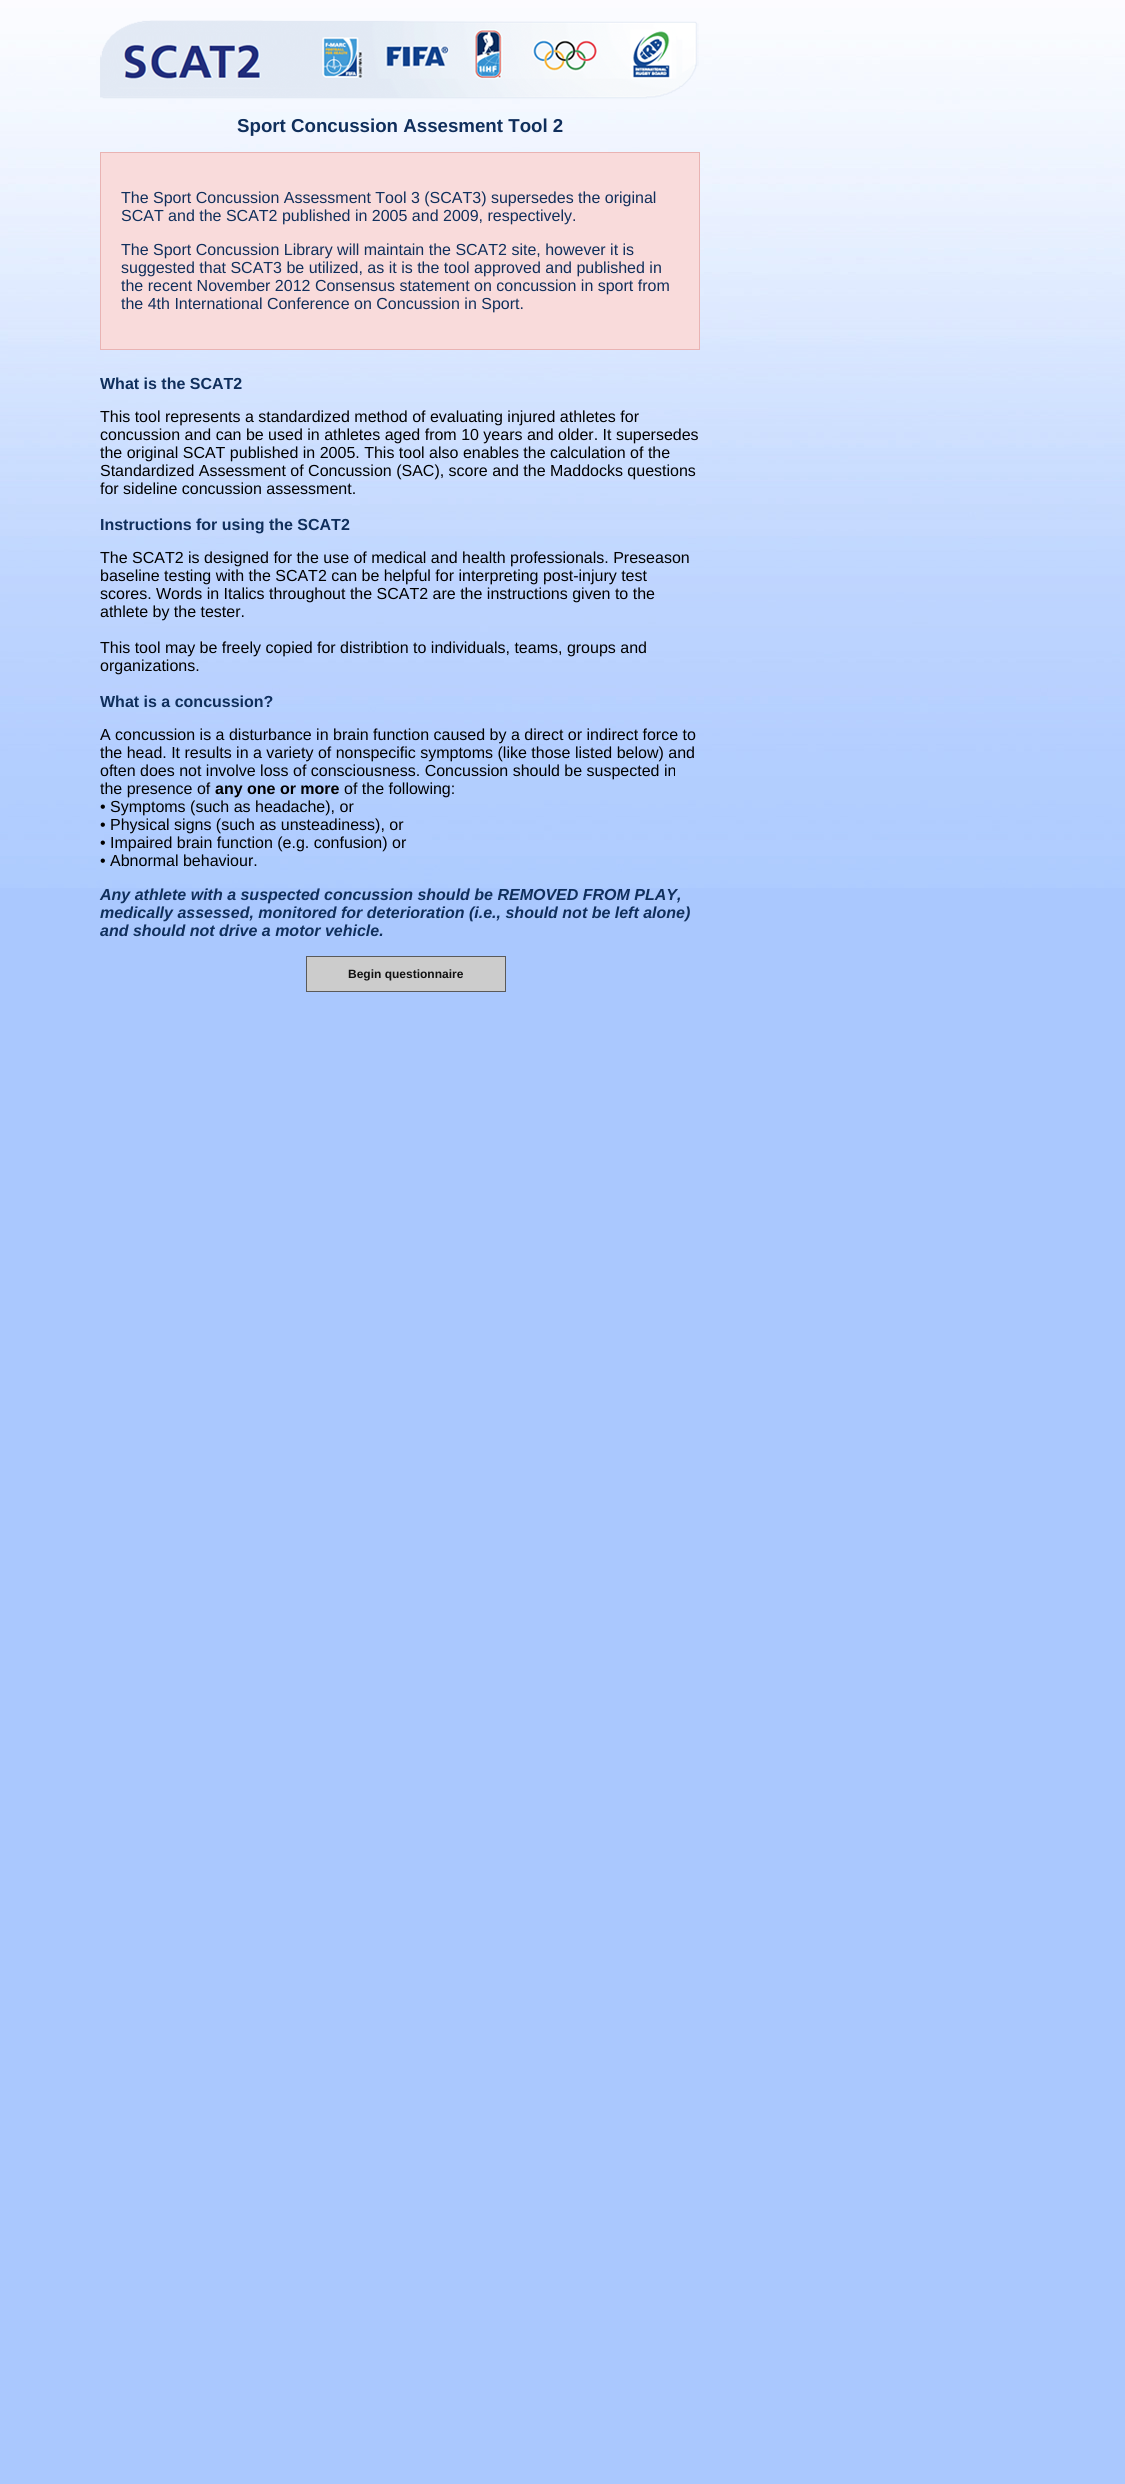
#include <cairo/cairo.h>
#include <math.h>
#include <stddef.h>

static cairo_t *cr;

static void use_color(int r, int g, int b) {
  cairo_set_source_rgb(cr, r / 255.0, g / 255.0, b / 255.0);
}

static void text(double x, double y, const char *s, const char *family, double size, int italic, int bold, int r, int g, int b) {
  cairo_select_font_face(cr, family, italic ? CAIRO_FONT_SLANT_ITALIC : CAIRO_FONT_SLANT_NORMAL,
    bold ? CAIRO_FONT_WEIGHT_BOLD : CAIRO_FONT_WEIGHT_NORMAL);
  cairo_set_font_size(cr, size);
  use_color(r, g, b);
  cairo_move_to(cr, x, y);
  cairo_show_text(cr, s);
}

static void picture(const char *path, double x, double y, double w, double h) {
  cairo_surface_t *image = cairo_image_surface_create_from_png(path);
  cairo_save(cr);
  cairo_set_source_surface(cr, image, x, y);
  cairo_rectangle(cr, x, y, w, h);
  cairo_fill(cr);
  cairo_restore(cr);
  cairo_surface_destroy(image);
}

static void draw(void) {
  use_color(170, 200, 254);
  cairo_paint(cr);
  picture("img_01.png", 800, 0, 325, 888);
  picture("img_02.png", 0, 0, 800, 888);
  picture("img_03.png", 100, 20, 599, 79);
  use_color(249, 219, 219);
  cairo_rectangle(cr, 100.5, 152.5, 599, 197);
  cairo_fill_preserve(cr);
  use_color(233, 179, 179);
  cairo_set_line_width(cr, 1);
  cairo_stroke(cr);
  use_color(204, 204, 204);
  cairo_rectangle(cr, 306.5, 956.5, 199, 35);
  cairo_fill_preserve(cr);
  use_color(90, 90, 90);
  cairo_stroke(cr);
  text(237, 132, "Sport Concussion Assesment Tool 2", "Liberation Sans", 18.7, 0, 1, 16, 47, 92);
  text(121, 203, "The Sport Concussion Assessment Tool 3 (SCAT3) supersedes the original", "Liberation Sans", 16, 0, 0, 16, 47, 92);
  text(121, 221, "SCAT and the SCAT2 published in 2005 and 2009, respectively.", "Liberation Sans", 16, 0, 0, 16, 47, 92);
  text(121, 255, "The Sport Concussion Library will maintain the SCAT2 site, however it is", "Liberation Sans", 16, 0, 0, 16, 47, 92);
  text(121, 273, "suggested that SCAT3 be utilized, as it is the tool approved and published in", "Liberation Sans", 16, 0, 0, 16, 47, 92);
  text(121, 291, "the recent November 2012 Consensus statement on concussion in sport from", "Liberation Sans", 16, 0, 0, 16, 47, 92);
  text(121, 309, "the 4th International Conference on Concussion in Sport.", "Liberation Sans", 16, 0, 0, 16, 47, 92);
  text(100, 389, "What is the SCAT2", "Liberation Sans", 16, 0, 1, 16, 47, 92);
  text(100, 422, "This tool represents a standardized method of evaluating injured athletes for", "Liberation Sans", 16, 0, 0, 0, 0, 0);
  text(100, 440, "concussion and can be used in athletes aged from 10 years and older. It supersedes", "Liberation Sans", 16, 0, 0, 0, 0, 0);
  text(100, 458, "the original SCAT published in 2005. This tool also enables the calculation of the", "Liberation Sans", 16, 0, 0, 0, 0, 0);
  text(100, 476, "Standardized Assessment of Concussion (SAC), score and the Maddocks questions", "Liberation Sans", 16, 0, 0, 0, 0, 0);
  text(100, 494, "for sideline concussion assessment.", "Liberation Sans", 16, 0, 0, 0, 0, 0);
  text(100, 530, "Instructions for using the SCAT2", "Liberation Sans", 16, 0, 1, 16, 47, 92);
  text(100, 563, "The SCAT2 is designed for the use of medical and health professionals. Preseason", "Liberation Sans", 16, 0, 0, 0, 0, 0);
  text(100, 581, "baseline testing with the SCAT2 can be helpful for interpreting post-injury test", "Liberation Sans", 16, 0, 0, 0, 0, 0);
  text(100, 599, "scores. Words in Italics throughout the SCAT2 are the instructions given to the", "Liberation Sans", 16, 0, 0, 0, 0, 0);
  text(100, 617, "athlete by the tester.", "Liberation Sans", 16, 0, 0, 0, 0, 0);
  text(100, 653, "This tool may be freely copied for distribtion to individuals, teams, groups and", "Liberation Sans", 16, 0, 0, 0, 0, 0);
  text(100, 671, "organizations.", "Liberation Sans", 16, 0, 0, 0, 0, 0);
  text(100, 707, "What is a concussion?", "Liberation Sans", 16, 0, 1, 16, 47, 92);
  text(100, 740, "A concussion is a disturbance in brain function caused by a direct or indirect force to", "Liberation Sans", 16, 0, 0, 0, 0, 0);
  text(100, 758, "the head. It results in a variety of nonspecific symptoms (like those listed below) and", "Liberation Sans", 16, 0, 0, 0, 0, 0);
  text(100, 776, "often does not involve loss of consciousness. Concussion should be suspected in", "Liberation Sans", 16, 0, 0, 0, 0, 0);
  text(100, 794, "the presence of", "Liberation Sans", 16, 0, 0, 0, 0, 0);
  text(215, 794, "any one or more", "Liberation Sans", 16, 0, 1, 0, 0, 0);
  text(344, 794, "of the following:", "Liberation Sans", 16, 0, 0, 0, 0, 0);
  text(100, 812, "• Symptoms (such as headache), or", "Liberation Sans", 16, 0, 0, 0, 0, 0);
  text(100, 830, "• Physical signs (such as unsteadiness), or", "Liberation Sans", 16, 0, 0, 0, 0, 0);
  text(100, 848, "• Impaired brain function (e.g. confusion) or", "Liberation Sans", 16, 0, 0, 0, 0, 0);
  text(100, 866, "• Abnormal behaviour.", "Liberation Sans", 16, 0, 0, 0, 0, 0);
  text(100, 900, "Any athlete with a suspected concussion should be REMOVED FROM PLAY,", "Liberation Sans", 16, 1, 1, 16, 47, 92);
  text(100, 918, "medically assessed, monitored for deterioration (i.e., should not be left alone)", "Liberation Sans", 16, 1, 1, 16, 47, 92);
  text(100, 936, "and should not drive a motor vehicle.", "Liberation Sans", 16, 1, 1, 16, 47, 92);
  text(348, 978, "Begin questionnaire", "Liberation Sans", 12, 0, 1, 17, 17, 17);
}

int main(void) {
  cairo_surface_t *surface = cairo_image_surface_create(CAIRO_FORMAT_RGB24, 1125, 2484);
  cr = cairo_create(surface);
  cairo_font_options_t *options = cairo_font_options_create();
  cairo_font_options_set_hint_metrics(options, CAIRO_HINT_METRICS_OFF);
  cairo_font_options_set_hint_style(options, CAIRO_HINT_STYLE_NONE);
  cairo_set_font_options(cr, options);
  cairo_set_miter_limit(cr, 4);
  draw();
  cairo_surface_write_to_png(surface, "out.png");
  cairo_font_options_destroy(options);
  cairo_destroy(cr);
  cairo_surface_destroy(surface);
  return 0;
}
